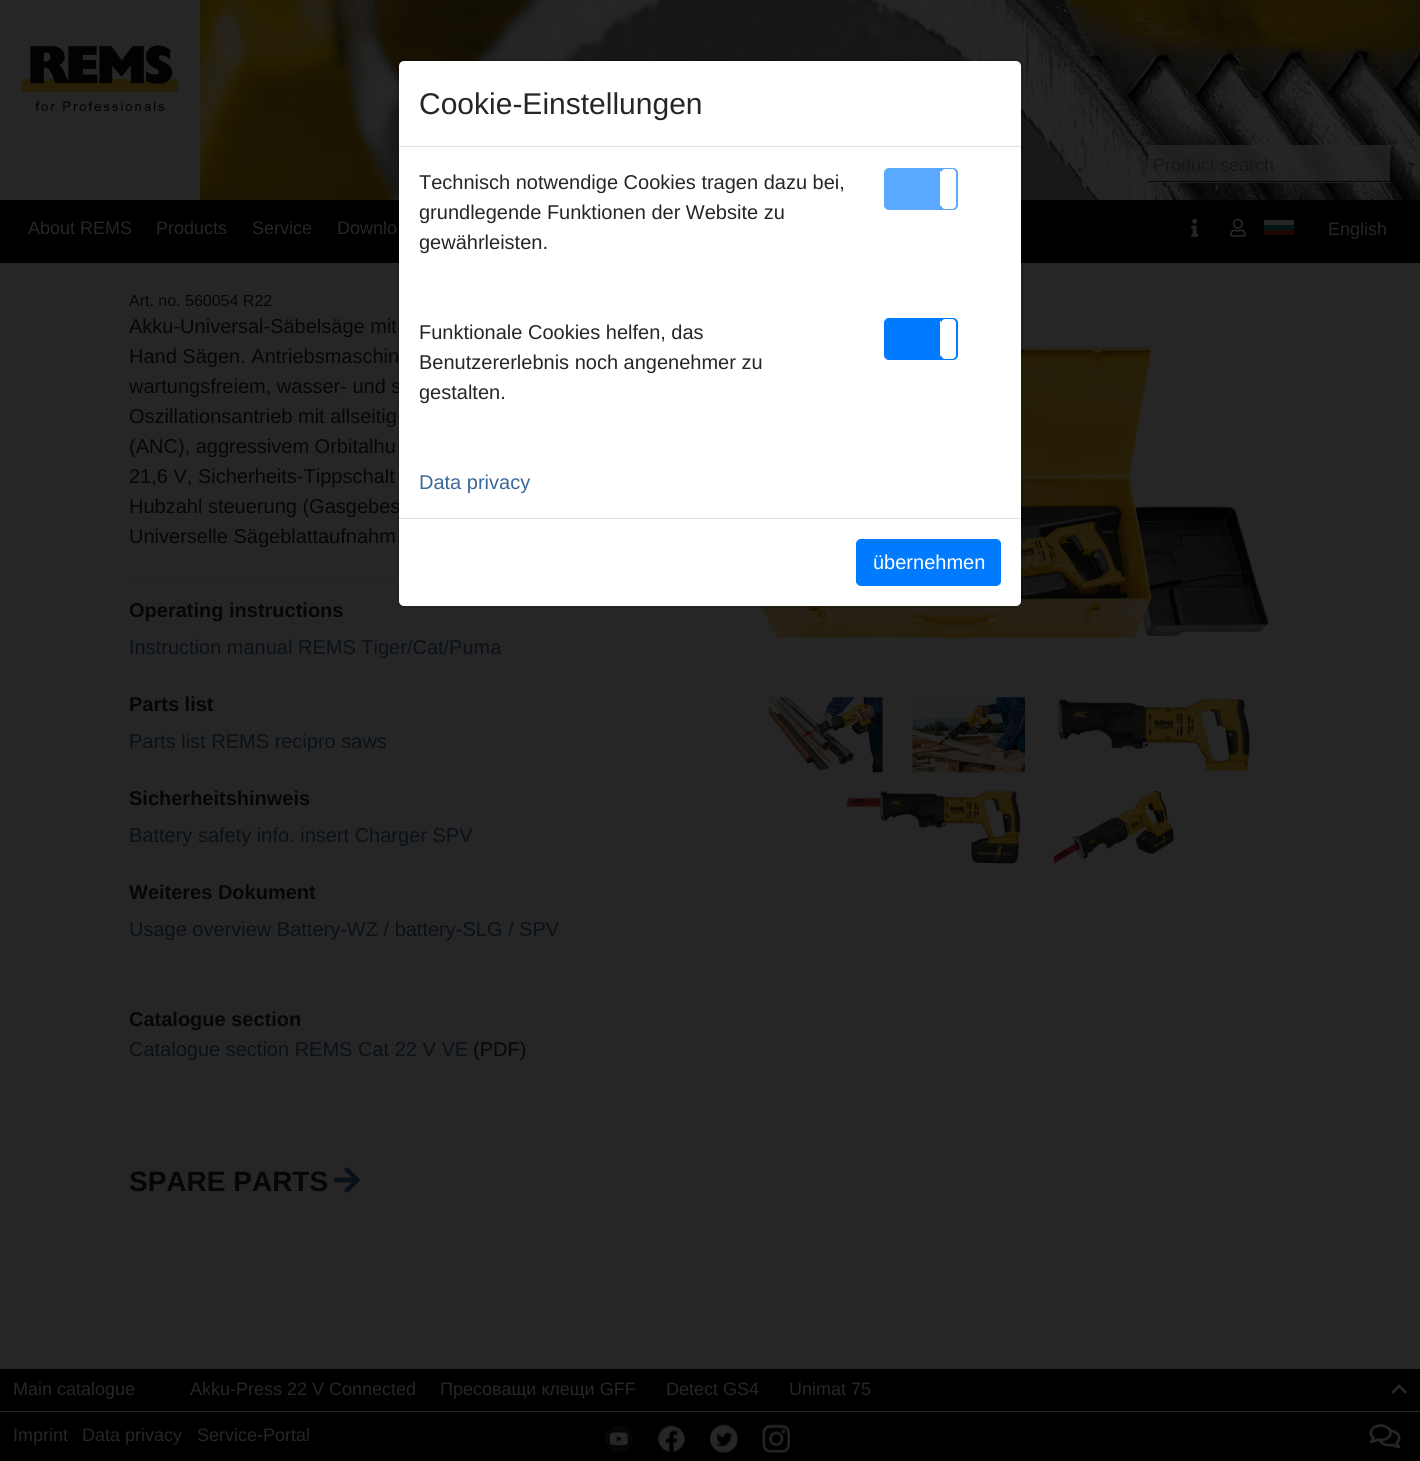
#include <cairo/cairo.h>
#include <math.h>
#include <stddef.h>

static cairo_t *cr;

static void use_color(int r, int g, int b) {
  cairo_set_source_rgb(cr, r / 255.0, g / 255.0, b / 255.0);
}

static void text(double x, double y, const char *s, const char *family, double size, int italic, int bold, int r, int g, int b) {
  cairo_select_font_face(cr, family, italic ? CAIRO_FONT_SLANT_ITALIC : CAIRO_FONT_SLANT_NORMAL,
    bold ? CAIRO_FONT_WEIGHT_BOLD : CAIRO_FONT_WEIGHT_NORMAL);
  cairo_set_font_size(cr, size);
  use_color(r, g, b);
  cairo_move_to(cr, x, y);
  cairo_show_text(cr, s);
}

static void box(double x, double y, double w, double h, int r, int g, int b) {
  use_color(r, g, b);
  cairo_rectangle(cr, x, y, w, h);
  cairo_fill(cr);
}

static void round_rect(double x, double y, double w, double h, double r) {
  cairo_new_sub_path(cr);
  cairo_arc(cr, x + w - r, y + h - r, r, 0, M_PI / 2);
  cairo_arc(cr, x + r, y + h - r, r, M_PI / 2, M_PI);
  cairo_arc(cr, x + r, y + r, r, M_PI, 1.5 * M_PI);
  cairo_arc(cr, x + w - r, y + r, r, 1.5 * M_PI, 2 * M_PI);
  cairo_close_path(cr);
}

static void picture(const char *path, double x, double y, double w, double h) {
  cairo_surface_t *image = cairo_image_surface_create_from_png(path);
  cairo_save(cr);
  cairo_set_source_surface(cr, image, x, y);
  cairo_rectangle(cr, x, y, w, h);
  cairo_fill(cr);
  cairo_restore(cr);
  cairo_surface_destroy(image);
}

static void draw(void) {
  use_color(38, 38, 38);
  cairo_paint(cr);
  picture("img_02.png", 200, 0, 1220, 200);
  cairo_set_source_rgba(cr, 0.149, 0.149, 0.149, 0.8);
  cairo_rectangle(cr, 1148, 145, 242, 38);
  cairo_fill(cr);
  cairo_set_source_rgba(cr, 0, 0, 0, 0.8);
  cairo_rectangle(cr, 1148, 181, 242, 1);
  cairo_fill(cr);
  box(0, 200, 1420, 63, 0, 0, 0);
  picture("img_01.png", 22, 45, 156, 67);
  picture("img_03.png", 1191, 218, 7, 19);
  picture("img_04.png", 1230, 218, 16, 19);
  box(1264, 220, 30, 5, 38, 38, 38);
  box(1264, 225, 30, 5, 0, 23, 17);
  box(1264, 230, 30, 5, 32, 6, 3);
  box(129, 578, 270, 1, 35, 35, 35);
  picture("img_05.png", 757, 345, 512, 294);
  picture("img_06.png", 768, 697, 115, 76);
  picture("img_07.png", 912, 697, 113, 76);
  picture("img_08.png", 1057, 697, 194, 75);
  picture("img_09.png", 845, 790, 176, 75);
  picture("img_10.png", 1052, 790, 123, 74);
  picture("img_11.png", 333, 1167, 27, 26);
  box(0, 1369, 1420, 42, 0, 0, 0);
  picture("img_12.png", 1391, 1384, 16, 10);
  box(0, 1412, 1420, 49, 0, 0, 0);
  picture("img_13.png", 605, 1424, 28, 29);
  picture("img_14.png", 657, 1425, 28, 27);
  picture("img_15.png", 710, 1424, 28, 29);
  picture("img_16.png", 762, 1424, 28, 29);
  picture("img_17.png", 1369, 1424, 32, 25);
  text(1153, 171, "Product search", "Liberation Sans", 18, 0, 0, 20, 21, 22);
  text(28, 234, "About REMS", "Liberation Sans", 18, 0, 0, 38, 38, 38);
  text(156, 234, "Products", "Liberation Sans", 18, 0, 0, 38, 38, 38);
  text(252, 234, "Service", "Liberation Sans", 18, 0, 0, 38, 38, 38);
  text(337, 234, "Downlo", "Liberation Sans", 18, 0, 0, 38, 38, 38);
  text(1328, 235, "English", "Liberation Sans", 18, 0, 0, 38, 38, 38);
  text(129, 306, "Art. no. 560054 R22", "Liberation Sans", 16, 0, 0, 5, 6, 6);
  text(129, 333, "Akku-Universal-Säbelsäge mit", "Liberation Sans", 20, 0, 0, 5, 6, 6);
  text(129, 363, "Hand Sägen. Antriebsmaschin", "Liberation Sans", 20, 0, 0, 5, 6, 6);
  text(129, 393, "wartungsfreiem, wasser- und s", "Liberation Sans", 20, 0, 0, 5, 6, 6);
  text(129, 423, "Oszillationsantrieb mit allseitig", "Liberation Sans", 20, 0, 0, 5, 6, 6);
  text(129, 453, "(ANC), aggressivem Orbitalhu", "Liberation Sans", 20, 0, 0, 5, 6, 6);
  text(129, 483, "21,6 V, Sicherheits-Tippschalt", "Liberation Sans", 20, 0, 0, 5, 6, 6);
  text(129, 513, "Hubzahl steuerung (Gasgebes", "Liberation Sans", 20, 0, 0, 5, 6, 6);
  use_color(255, 255, 255);
  round_rect(399, 61, 622, 545, 5);
  cairo_fill(cr);
  round_rect(398.5, 60.5, 624, 547, 5.5);
  cairo_set_source_rgba(cr, 0, 0, 0, 0.2);
  cairo_set_line_width(cr, 1);
  cairo_stroke(cr);
  use_color(0, 123, 255);
  round_rect(884.5, 318.5, 73, 41, 4.5);
  cairo_fill_preserve(cr);
  cairo_stroke(cr);
  box(940, 321, 1, 35, 248, 249, 250);
  use_color(255, 255, 255);
  cairo_new_path(cr);
  cairo_move_to(cr, 945, 319);
  cairo_curve_to(cr, 943, 319, 941, 321, 941, 324);
  cairo_line_to(cr, 941, 354);
  cairo_curve_to(cr, 941, 357, 943, 359, 945, 359);
  cairo_line_to(cr, 952, 359);
  cairo_curve_to(cr, 954, 359, 956, 357, 956, 355);
  cairo_line_to(cr, 956, 323);
  cairo_curve_to(cr, 956, 321, 954, 319, 952, 319);
  cairo_close_path(cr);
  cairo_fill(cr);
  text(419, 399, "gestalten.", "Liberation Sans", 20, 0, 0, 38, 38, 38);
  text(419, 369, "Benutzererlebnis noch angenehmer zu", "Liberation Sans", 20, 0, 0, 38, 38, 38);
  text(419, 339, "Funktionale Cookies helfen, das", "Liberation Sans", 20, 0, 0, 38, 38, 38);
  use_color(89, 169, 255);
  round_rect(884.5, 168.5, 73, 41, 4.5);
  cairo_fill_preserve(cr);
  cairo_stroke(cr);
  box(940, 171, 1, 35, 250, 251, 252);
  use_color(255, 255, 255);
  cairo_new_path(cr);
  cairo_move_to(cr, 945, 169);
  cairo_curve_to(cr, 943, 169, 941, 171, 941, 174);
  cairo_line_to(cr, 941, 204);
  cairo_curve_to(cr, 941, 207, 943, 209, 945, 209);
  cairo_line_to(cr, 952, 209);
  cairo_curve_to(cr, 954, 209, 956, 207, 956, 205);
  cairo_line_to(cr, 956, 173);
  cairo_curve_to(cr, 956, 171, 954, 169, 952, 169);
  cairo_close_path(cr);
  cairo_fill(cr);
  text(419, 249, "gewährleisten.", "Liberation Sans", 20, 0, 0, 38, 38, 38);
  text(419, 219, "grundlegende Funktionen der Website zu", "Liberation Sans", 20, 0, 0, 38, 38, 38);
  text(419, 189, "Technisch notwendige Cookies tragen dazu bei,", "Liberation Sans", 20, 0, 0, 38, 38, 38);
  text(419, 489, "Data privacy", "Liberation Sans", 20, 0, 0, 60, 105, 153);
  use_color(0, 123, 255);
  round_rect(856.5, 539.5, 144, 46, 4.5);
  cairo_fill_preserve(cr);
  cairo_stroke(cr);
  text(873, 569, "übernehmen", "Liberation Sans", 20, 0, 0, 255, 255, 255);
  box(399, 518, 622, 1, 222, 226, 230);
  text(419, 114, "Cookie-Einstellungen", "Liberation Sans", 30, 0, 0, 38, 38, 38);
  box(399, 146, 622, 1, 222, 226, 230);
  text(129, 543, "Universelle Sägeblattaufnahm", "Liberation Sans", 20, 0, 0, 5, 6, 6);
  text(129, 617, "Operating instructions", "Liberation Sans", 20, 0, 1, 5, 6, 6);
  text(129, 654, "Instruction manual REMS Tiger/Cat/Puma", "Liberation Sans", 20, 0, 0, 9, 16, 23);
  text(129, 711, "Parts list", "Liberation Sans", 20, 0, 1, 5, 6, 6);
  text(129, 748, "Parts list REMS recipro saws", "Liberation Sans", 20, 0, 0, 9, 16, 23);
  text(129, 805, "Sicherheitshinweis", "Liberation Sans", 20, 0, 1, 5, 6, 6);
  text(129, 842, "Battery safety info. insert Charger SPV", "Liberation Sans", 20, 0, 0, 9, 16, 23);
  text(129, 899, "Weiteres Dokument", "Liberation Sans", 20, 0, 1, 5, 6, 6);
  text(129, 936, "Usage overview Battery-WZ / battery-SLG / SPV", "Liberation Sans", 20, 0, 0, 9, 16, 23);
  text(129, 1026, "Catalogue section", "Liberation Sans", 20, 0, 1, 5, 6, 6);
  text(129, 1056, "Catalogue section REMS Cat 22 V VE", "Liberation Sans", 20, 0, 0, 9, 16, 23);
  text(473, 1056, "(PDF)", "Liberation Sans", 20, 0, 0, 5, 6, 6);
  text(129, 1191, "SPARE PARTS", "Liberation Sans", 28, 0, 1, 5, 6, 6);
  text(13, 1395, "Main catalogue", "Liberation Sans", 18, 0, 0, 38, 38, 38);
  text(190, 1395, "Akku-Press 22 V Connected", "Liberation Sans", 18, 0, 0, 38, 38, 38);
  text(440, 1395, "Пресоващи клещи GFF", "Liberation Sans", 18, 0, 0, 38, 38, 38);
  text(666, 1395, "Detect GS4", "Liberation Sans", 18, 0, 0, 38, 38, 38);
  text(789, 1395, "Unimat 75", "Liberation Sans", 18, 0, 0, 38, 38, 38);
  text(13, 1441, "Imprint", "Liberation Sans", 18, 0, 0, 38, 38, 38);
  text(82, 1441, "Data privacy", "Liberation Sans", 18, 0, 0, 38, 38, 38);
  text(197, 1441, "Service-Portal", "Liberation Sans", 18, 0, 0, 38, 38, 38);
}

int main(void) {
  cairo_surface_t *surface = cairo_image_surface_create(CAIRO_FORMAT_RGB24, 1420, 1461);
  cr = cairo_create(surface);
  cairo_font_options_t *options = cairo_font_options_create();
  cairo_font_options_set_hint_metrics(options, CAIRO_HINT_METRICS_OFF);
  cairo_font_options_set_hint_style(options, CAIRO_HINT_STYLE_NONE);
  cairo_set_font_options(cr, options);
  cairo_set_miter_limit(cr, 4);
  draw();
  cairo_surface_write_to_png(surface, "out.png");
  cairo_font_options_destroy(options);
  cairo_destroy(cr);
  cairo_surface_destroy(surface);
  return 0;
}
